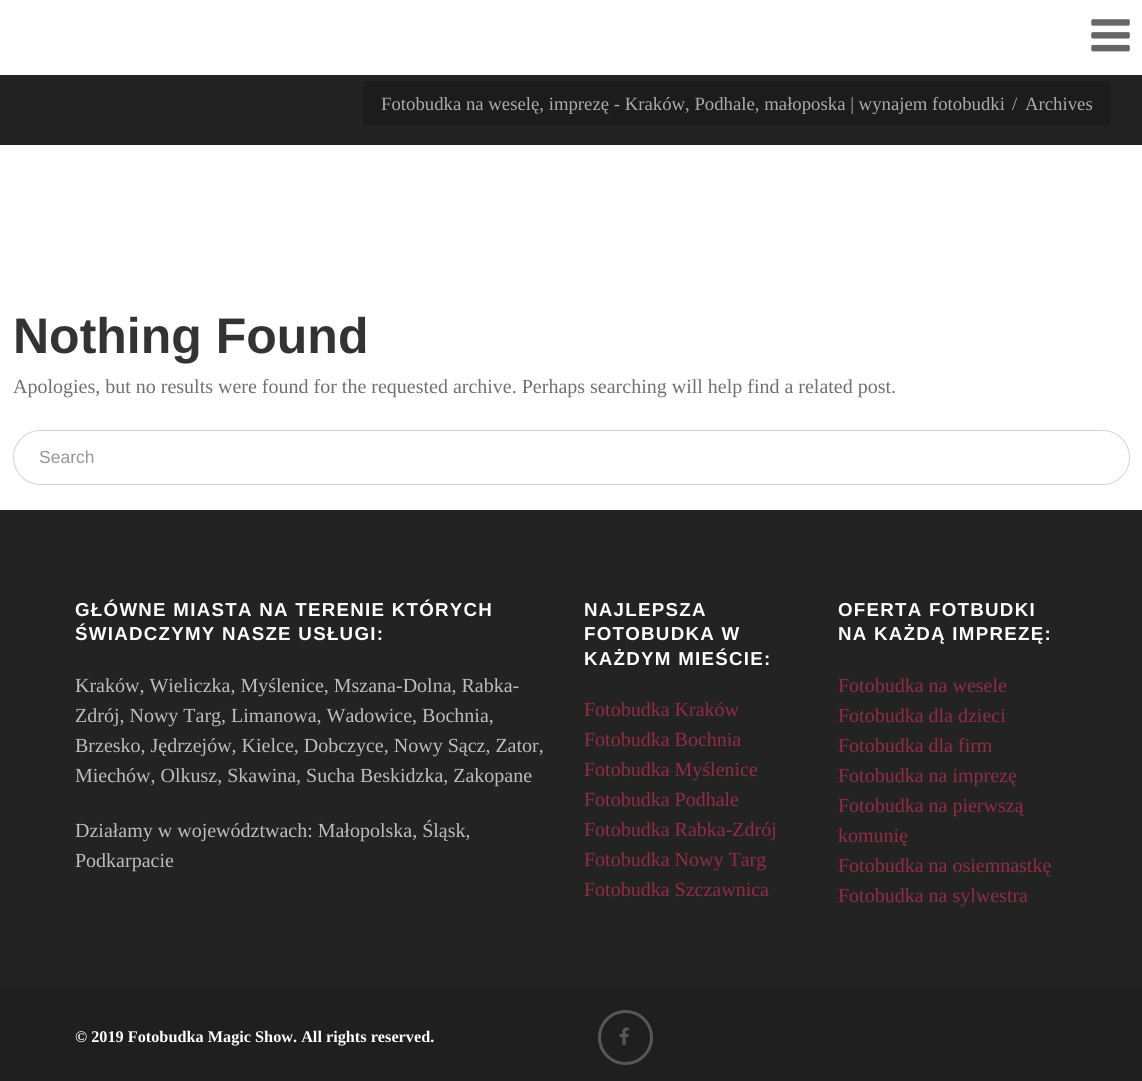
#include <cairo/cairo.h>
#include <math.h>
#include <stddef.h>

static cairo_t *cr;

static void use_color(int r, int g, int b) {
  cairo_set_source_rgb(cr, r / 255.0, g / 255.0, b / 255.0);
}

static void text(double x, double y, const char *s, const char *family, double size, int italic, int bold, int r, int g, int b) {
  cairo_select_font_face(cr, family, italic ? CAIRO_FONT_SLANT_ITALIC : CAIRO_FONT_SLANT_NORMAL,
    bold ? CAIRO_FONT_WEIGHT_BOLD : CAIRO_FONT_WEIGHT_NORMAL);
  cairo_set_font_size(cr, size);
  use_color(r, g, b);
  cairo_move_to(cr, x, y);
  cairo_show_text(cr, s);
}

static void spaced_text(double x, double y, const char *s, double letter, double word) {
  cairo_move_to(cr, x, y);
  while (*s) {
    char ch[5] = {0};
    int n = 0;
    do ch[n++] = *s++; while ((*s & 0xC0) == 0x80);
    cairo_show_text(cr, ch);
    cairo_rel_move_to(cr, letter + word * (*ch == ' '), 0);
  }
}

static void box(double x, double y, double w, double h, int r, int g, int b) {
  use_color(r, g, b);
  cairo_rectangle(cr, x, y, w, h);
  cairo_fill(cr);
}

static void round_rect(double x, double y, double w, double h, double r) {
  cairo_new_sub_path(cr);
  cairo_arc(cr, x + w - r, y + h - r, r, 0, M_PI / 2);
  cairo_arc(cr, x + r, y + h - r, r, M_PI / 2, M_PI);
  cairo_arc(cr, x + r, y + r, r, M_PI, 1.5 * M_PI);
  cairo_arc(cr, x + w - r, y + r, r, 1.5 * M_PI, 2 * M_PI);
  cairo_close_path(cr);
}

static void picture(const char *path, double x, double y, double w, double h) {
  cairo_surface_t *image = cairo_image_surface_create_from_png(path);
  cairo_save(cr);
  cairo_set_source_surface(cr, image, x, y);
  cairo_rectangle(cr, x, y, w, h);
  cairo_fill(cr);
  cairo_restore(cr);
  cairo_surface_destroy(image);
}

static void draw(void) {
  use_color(255, 255, 255);
  cairo_paint(cr);
  picture("img_01.png", 1091, 19, 39, 33);
  box(0, 75, 1142, 70, 35, 35, 35);
  use_color(28, 28, 28);
  round_rect(363, 81, 748, 45, 4);
  cairo_fill(cr);
  round_rect(13.5, 430.5, 1116, 54, 27);
  use_color(209, 211, 213);
  cairo_set_line_width(cr, 1);
  cairo_stroke(cr);
  box(0, 510, 1142, 476, 35, 35, 35);
  box(0, 986, 1142, 95, 31, 31, 31);
  cairo_arc(cr, 625.5, 1037.5, 26, 0, 2 * M_PI);
  use_color(87, 87, 87);
  cairo_set_line_width(cr, 3);
  cairo_stroke(cr);
  picture("img_02.png", 619, 1027, 10, 18);
  text(381, 110, "Fotobudka na weselę, imprezę - Kraków, Podhale, małoposka | wynajem fotobudki", "Liberation Serif", 18.75, 0, 0, 171, 171, 171);
  text(1012, 110, "/", "Liberation Serif", 18.75, 0, 0, 171, 171, 171);
  text(1025, 110, "Archives", "Liberation Serif", 18.75, 0, 0, 171, 171, 171);
  text(13, 353, "Nothing Found", "Liberation Sans", 50, 0, 1, 51, 51, 51);
  text(13, 393, "Apologies, but no results were found for the requested archive. Perhaps searching will help find a related post.", "Liberation Serif", 20, 0, 0, 112, 112, 112);
  text(39, 463, "Search", "Liberation Sans", 17.5, 0, 0, 150, 150, 150);
  cairo_select_font_face(cr, "Liberation Sans", CAIRO_FONT_SLANT_NORMAL, CAIRO_FONT_WEIGHT_BOLD);
  cairo_set_font_size(cr, 18.75);
  use_color(255, 255, 255);
  spaced_text(75, 616, "GŁÓWNE MIASTA NA TERENIE KTÓRYCH", 1.25, 0);
  spaced_text(75, 640, "ŚWIADCZYMY NASZE USŁUGI:", 1.25, 0);
  text(75, 692, "Kraków, Wieliczka, Myślenice, Mszana-Dolna, Rabka-", "Liberation Serif", 20, 0, 0, 189, 189, 189);
  text(75, 722, "Zdrój, Nowy Targ, Limanowa, Wadowice, Bochnia,", "Liberation Serif", 20, 0, 0, 189, 189, 189);
  text(75, 752, "Brzesko, Jędrzejów, Kielce, Dobczyce, Nowy Sącz, Zator,", "Liberation Serif", 20, 0, 0, 189, 189, 189);
  text(75, 782, "Miechów, Olkusz, Skawina, Sucha Beskidzka, Zakopane", "Liberation Serif", 20, 0, 0, 189, 189, 189);
  text(75, 837, "Działamy w województwach: Małopolska, Śląsk,", "Liberation Serif", 20, 0, 0, 189, 189, 189);
  text(75, 867, "Podkarpacie", "Liberation Serif", 20, 0, 0, 189, 189, 189);
  cairo_select_font_face(cr, "Liberation Sans", CAIRO_FONT_SLANT_NORMAL, CAIRO_FONT_WEIGHT_BOLD);
  cairo_set_font_size(cr, 18.75);
  use_color(255, 255, 255);
  spaced_text(584, 616, "NAJLEPSZA", 1.25, 0);
  spaced_text(584, 640, "FOTOBUDKA W", 1.25, 0);
  spaced_text(584, 665, "KAŻDYM MIEŚCIE:", 1.25, 0);
  text(584, 716, "Fotobudka Kraków", "Liberation Serif", 20, 0, 0, 145, 43, 70);
  text(584, 746, "Fotobudka Bochnia", "Liberation Serif", 20, 0, 0, 145, 43, 70);
  text(584, 776, "Fotobudka Myślenice", "Liberation Serif", 20, 0, 0, 145, 43, 70);
  text(584, 806, "Fotobudka Podhale", "Liberation Serif", 20, 0, 0, 145, 43, 70);
  text(584, 836, "Fotobudka Rabka-Zdrój", "Liberation Serif", 20, 0, 0, 145, 43, 70);
  text(584, 866, "Fotobudka Nowy Targ", "Liberation Serif", 20, 0, 0, 145, 43, 70);
  text(584, 896, "Fotobudka Szczawnica", "Liberation Serif", 20, 0, 0, 145, 43, 70);
  cairo_select_font_face(cr, "Liberation Sans", CAIRO_FONT_SLANT_NORMAL, CAIRO_FONT_WEIGHT_BOLD);
  cairo_set_font_size(cr, 18.75);
  use_color(255, 255, 255);
  spaced_text(838, 616, "OFERTA FOTBUDKI", 1.25, 0);
  spaced_text(838, 640, "NA KAŻDĄ IMPREZĘ:", 1.25, 0);
  text(838, 692, "Fotobudka na wesele", "Liberation Serif", 20, 0, 0, 145, 43, 70);
  text(838, 722, "Fotobudka dla dzieci", "Liberation Serif", 20, 0, 0, 145, 43, 70);
  text(838, 752, "Fotobudka dla firm", "Liberation Serif", 20, 0, 0, 145, 43, 70);
  text(838, 782, "Fotobudka na imprezę", "Liberation Serif", 20, 0, 0, 145, 43, 70);
  text(838, 812, "Fotobudka na pierwszą", "Liberation Serif", 20, 0, 0, 145, 43, 70);
  text(838, 842, "komunię", "Liberation Serif", 20, 0, 0, 145, 43, 70);
  text(838, 872, "Fotobudka na osiemnastkę", "Liberation Serif", 20, 0, 0, 145, 43, 70);
  text(838, 902, "Fotobudka na sylwestra", "Liberation Serif", 20, 0, 0, 145, 43, 70);
  text(75, 1042, "© 2019 Fotobudka Magic Show. All rights reserved.", "Liberation Serif", 16.25, 0, 1, 255, 255, 255);
}

int main(void) {
  cairo_surface_t *surface = cairo_image_surface_create(CAIRO_FORMAT_RGB24, 1142, 1081);
  cr = cairo_create(surface);
  cairo_font_options_t *options = cairo_font_options_create();
  cairo_font_options_set_hint_metrics(options, CAIRO_HINT_METRICS_OFF);
  cairo_font_options_set_hint_style(options, CAIRO_HINT_STYLE_NONE);
  cairo_set_font_options(cr, options);
  cairo_set_miter_limit(cr, 4);
  draw();
  cairo_surface_write_to_png(surface, "out.png");
  cairo_font_options_destroy(options);
  cairo_destroy(cr);
  cairo_surface_destroy(surface);
  return 0;
}
